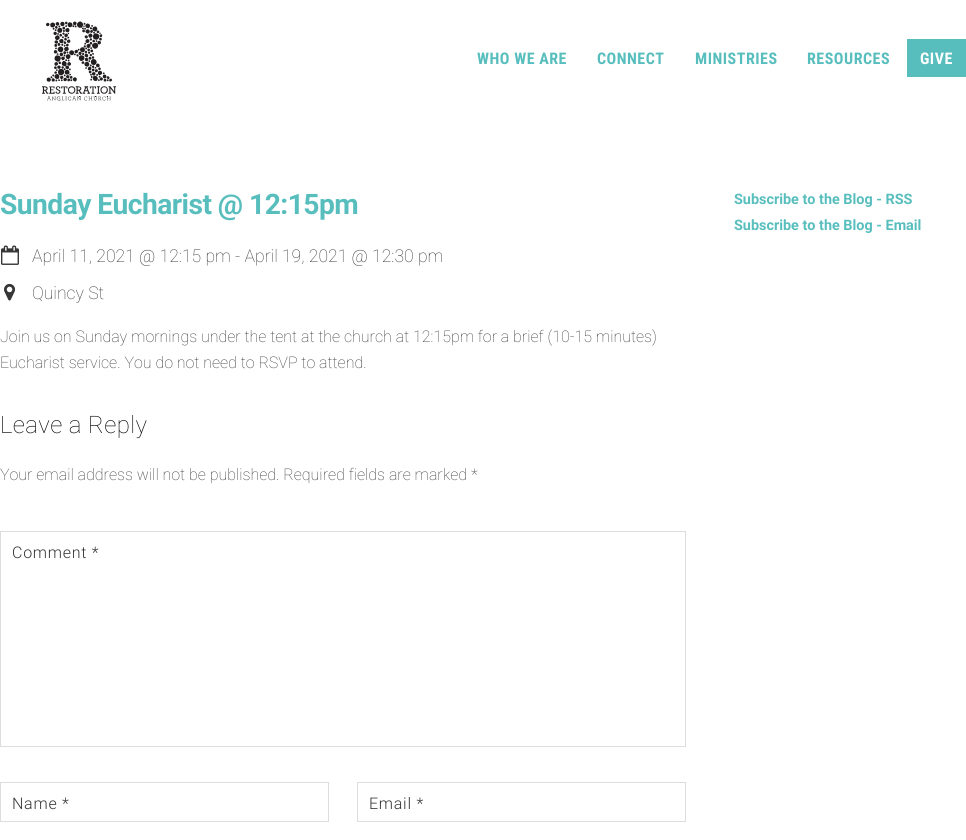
#include <cairo/cairo.h>
#include <math.h>
#include <stddef.h>

static cairo_t *cr;

static void use_color(int r, int g, int b) {
  cairo_set_source_rgb(cr, r / 255.0, g / 255.0, b / 255.0);
}

static void text(double x, double y, const char *s, const char *family, double size, int italic, int bold, int r, int g, int b) {
  cairo_select_font_face(cr, family, italic ? CAIRO_FONT_SLANT_ITALIC : CAIRO_FONT_SLANT_NORMAL,
    bold ? CAIRO_FONT_WEIGHT_BOLD : CAIRO_FONT_WEIGHT_NORMAL);
  cairo_set_font_size(cr, size);
  use_color(r, g, b);
  cairo_move_to(cr, x, y);
  cairo_show_text(cr, s);
}

static void spaced_text(double x, double y, const char *s, double letter, double word) {
  cairo_move_to(cr, x, y);
  while (*s) {
    char ch[5] = {0};
    int n = 0;
    do ch[n++] = *s++; while ((*s & 0xC0) == 0x80);
    cairo_show_text(cr, ch);
    cairo_rel_move_to(cr, letter + word * (*ch == ' '), 0);
  }
}

static void box(double x, double y, double w, double h, int r, int g, int b) {
  use_color(r, g, b);
  cairo_rectangle(cr, x, y, w, h);
  cairo_fill(cr);
}

static void picture(const char *path, double x, double y, double w, double h) {
  cairo_surface_t *image = cairo_image_surface_create_from_png(path);
  cairo_save(cr);
  cairo_set_source_surface(cr, image, x, y);
  cairo_rectangle(cr, x, y, w, h);
  cairo_fill(cr);
  cairo_restore(cr);
  cairo_surface_destroy(image);
}

static void draw(void) {
  use_color(255, 255, 255);
  cairo_paint(cr);
  picture("img_01.png", 42, 21, 75, 80);
  box(907, 39, 59, 38, 87, 190, 189);
  picture("img_02.png", 1, 245, 18, 20);
  picture("img_03.png", 4, 283, 12, 18);
  cairo_rectangle(cr, 0.5, 531.5, 685, 215);
  use_color(221, 221, 221);
  cairo_set_line_width(cr, 1);
  cairo_stroke(cr);
  cairo_rectangle(cr, 0.5, 782.5, 328, 39);
  cairo_stroke(cr);
  cairo_rectangle(cr, 357.5, 782.5, 328, 39);
  cairo_stroke(cr);
  cairo_select_font_face(cr, "Roboto Condensed", CAIRO_FONT_SLANT_NORMAL, CAIRO_FONT_WEIGHT_BOLD);
  cairo_set_font_size(cr, 16);
  use_color(87, 190, 189);
  spaced_text(477, 64, "WHO WE ARE", 0.5, 0);
  spaced_text(597, 64, "CONNECT", 0.5, 0);
  spaced_text(695, 64, "MINISTRIES", 0.5, 0);
  spaced_text(807, 64, "RESOURCES", 0.5, 0);
  use_color(255, 255, 255);
  spaced_text(920, 64, "GIVE", 0.5, 0);
  cairo_select_font_face(cr, "Roboto", CAIRO_FONT_SLANT_NORMAL, CAIRO_FONT_WEIGHT_BOLD);
  cairo_set_font_size(cr, 28.2);
  use_color(87, 190, 189);
  spaced_text(0, 214, "Sunday Eucharist @ 12:15pm", -0.55, 0);
  text(32, 262, "April 11, 2021 @ 12:15 pm - April 19, 2021 @ 12:30 pm", "Roboto Thin", 17.6, 0, 0, 54, 54, 54);
  text(32, 299, "Quincy St", "Roboto Thin", 17.6, 0, 0, 54, 54, 54);
  text(0, 342, "Join us on Sunday mornings under the tent at the church at 12:15pm for a brief (10-15 minutes)", "Roboto Thin", 16, 0, 0, 54, 54, 54);
  text(0, 368, "Eucharist service. You do not need to RSVP to attend.", "Roboto Thin", 16, 0, 0, 54, 54, 54);
  cairo_set_font_size(cr, 24);
  use_color(0, 0, 0);
  spaced_text(0, 433, "Leave a Reply", 0.4, 0);
  text(0, 480, "Your email address will not be published. Required fields are marked *", "Roboto Thin", 16, 0, 0, 54, 54, 54);
  cairo_select_font_face(cr, "Roboto Light", CAIRO_FONT_SLANT_NORMAL, CAIRO_FONT_WEIGHT_NORMAL);
  spaced_text(12, 558, "Comment *", 0.75, 0);
  spaced_text(12, 809, "Name *", 0.75, 0);
  spaced_text(369, 809, "Email *", 0.75, 0);
  text(734, 204, "Subscribe to the Blog - RSS", "Roboto", 14.4, 0, 1, 87, 190, 189);
  text(734, 230, "Subscribe to the Blog - Email", "Roboto", 14.4, 0, 1, 87, 190, 189);
}

int main(void) {
  cairo_surface_t *surface = cairo_image_surface_create(CAIRO_FORMAT_RGB24, 966, 840);
  cr = cairo_create(surface);
  cairo_font_options_t *options = cairo_font_options_create();
  cairo_font_options_set_hint_metrics(options, CAIRO_HINT_METRICS_OFF);
  cairo_font_options_set_hint_style(options, CAIRO_HINT_STYLE_NONE);
  cairo_set_font_options(cr, options);
  cairo_set_miter_limit(cr, 4);
  draw();
  cairo_surface_write_to_png(surface, "out.png");
  cairo_font_options_destroy(options);
  cairo_destroy(cr);
  cairo_surface_destroy(surface);
  return 0;
}
